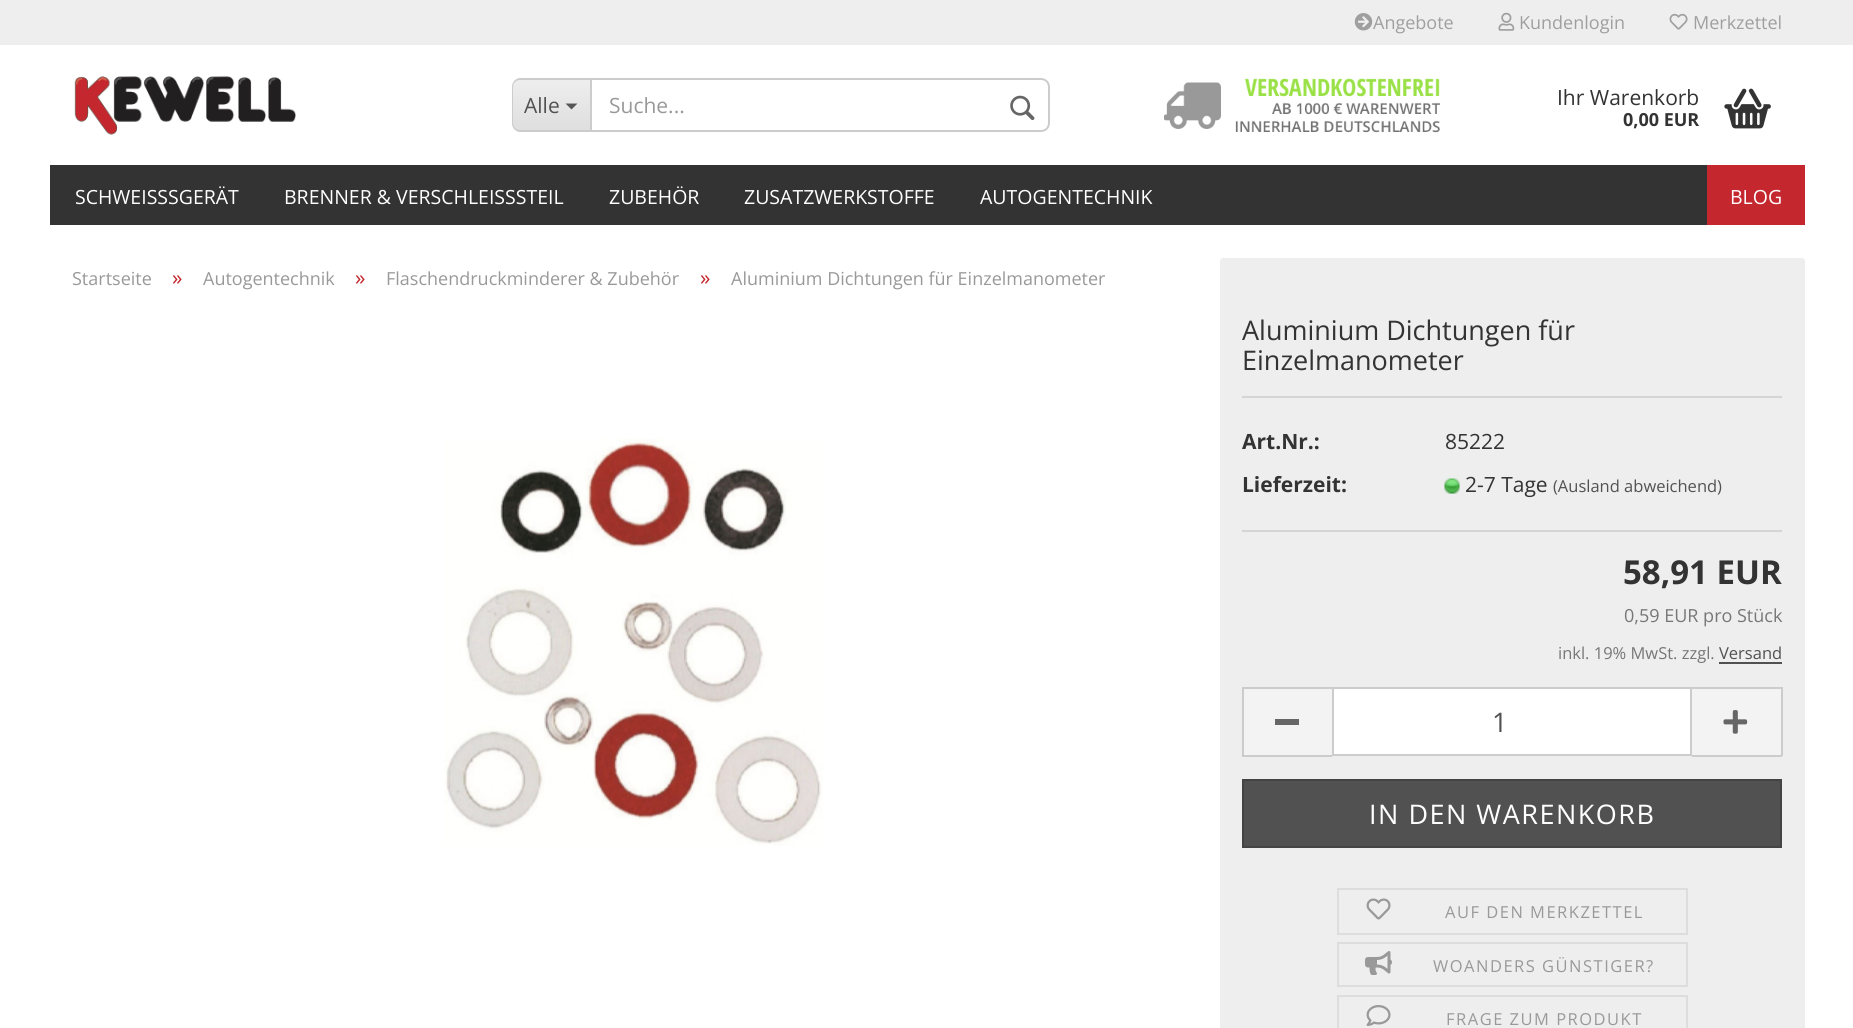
#include <cairo/cairo.h>
#include <math.h>
#include <stddef.h>

static cairo_t *cr;

static void use_color(int r, int g, int b) {
  cairo_set_source_rgb(cr, r / 255.0, g / 255.0, b / 255.0);
}

static void text(double x, double y, const char *s, const char *family, double size, int italic, int bold, int r, int g, int b) {
  cairo_select_font_face(cr, family, italic ? CAIRO_FONT_SLANT_ITALIC : CAIRO_FONT_SLANT_NORMAL,
    bold ? CAIRO_FONT_WEIGHT_BOLD : CAIRO_FONT_WEIGHT_NORMAL);
  cairo_set_font_size(cr, size);
  use_color(r, g, b);
  cairo_move_to(cr, x, y);
  cairo_show_text(cr, s);
}

static void spaced_text(double x, double y, const char *s, double letter, double word) {
  cairo_move_to(cr, x, y);
  while (*s) {
    char ch[5] = {0};
    int n = 0;
    do ch[n++] = *s++; while ((*s & 0xC0) == 0x80);
    cairo_show_text(cr, ch);
    cairo_rel_move_to(cr, letter + word * (*ch == ' '), 0);
  }
}

static void box(double x, double y, double w, double h, int r, int g, int b) {
  use_color(r, g, b);
  cairo_rectangle(cr, x, y, w, h);
  cairo_fill(cr);
}

static void round_rect(double x, double y, double w, double h, double r) {
  cairo_new_sub_path(cr);
  cairo_arc(cr, x + w - r, y + h - r, r, 0, M_PI / 2);
  cairo_arc(cr, x + r, y + h - r, r, M_PI / 2, M_PI);
  cairo_arc(cr, x + r, y + r, r, M_PI, 1.5 * M_PI);
  cairo_arc(cr, x + w - r, y + r, r, 1.5 * M_PI, 2 * M_PI);
  cairo_close_path(cr);
}

static void picture(const char *path, double x, double y, double w, double h) {
  cairo_surface_t *image = cairo_image_surface_create_from_png(path);
  cairo_save(cr);
  cairo_set_source_surface(cr, image, x, y);
  cairo_rectangle(cr, x, y, w, h);
  cairo_fill(cr);
  cairo_restore(cr);
  cairo_surface_destroy(image);
}

static void draw(void) {
  cairo_pattern_t *gradient;
  use_color(255, 255, 255);
  cairo_paint(cr);
  box(0, 0, 1853, 45, 238, 238, 238);
  picture("img_01.png", 1354, 13, 19, 18);
  picture("img_02.png", 1498, 12, 17, 19);
  picture("img_03.png", 1669, 13, 19, 17);
  picture("img_04.png", 74, 76, 222, 59);
  cairo_save(cr);
  cairo_new_path(cr);
  cairo_move_to(cr, 521, 78);
  cairo_line_to(cr, 590, 78);
  cairo_line_to(cr, 590, 132);
  cairo_line_to(cr, 521, 132);
  cairo_curve_to(cr, 516, 132, 512, 128, 512, 123);
  cairo_line_to(cr, 512, 87);
  cairo_curve_to(cr, 512, 82, 516, 78, 521, 78);
  cairo_close_path(cr);
  cairo_clip(cr);
  gradient = cairo_pattern_create_linear(551, 80, 551, 131);
  cairo_pattern_add_color_stop_rgba(gradient, 0, 0.933, 0.933, 0.933, 1);
  cairo_pattern_add_color_stop_rgba(gradient, 1, 0.871, 0.871, 0.871, 1);
  cairo_set_source(cr, gradient);
  cairo_pattern_destroy(gradient);
  cairo_rectangle(cr, 512, 80, 78, 51);
  cairo_fill(cr);
  cairo_restore(cr);
  use_color(204, 204, 204);
  cairo_set_fill_rule(cr, CAIRO_FILL_RULE_EVEN_ODD);
  cairo_new_path(cr);
  cairo_move_to(cr, 520, 78);
  cairo_line_to(cr, 590, 78);
  cairo_line_to(cr, 590, 132);
  cairo_line_to(cr, 520, 132);
  cairo_curve_to(cr, 516, 132, 512, 128, 512, 123);
  cairo_line_to(cr, 512, 87);
  cairo_curve_to(cr, 512, 82, 516, 78, 520, 78);
  cairo_close_path(cr);
  cairo_move_to(cr, 520, 80);
  cairo_line_to(cr, 590, 80);
  cairo_line_to(cr, 590, 130);
  cairo_line_to(cr, 520, 130);
  cairo_curve_to(cr, 516, 130, 513, 127, 513, 123);
  cairo_line_to(cr, 513, 87);
  cairo_curve_to(cr, 513, 83, 516, 80, 520, 80);
  cairo_close_path(cr);
  cairo_fill(cr);
  use_color(85, 85, 85);
  cairo_set_fill_rule(cr, CAIRO_FILL_RULE_WINDING);
  cairo_new_path(cr);
  cairo_move_to(cr, 565.5, 103.5);
  cairo_line_to(cr, 577.5, 103.5);
  cairo_line_to(cr, 571.5, 109.5);
  cairo_close_path(cr);
  cairo_fill(cr);
  cairo_new_path(cr);
  cairo_move_to(cr, 591, 79);
  cairo_line_to(cr, 1041, 79);
  cairo_curve_to(cr, 1045.5, 79, 1049, 82.5, 1049, 87);
  cairo_line_to(cr, 1049, 123);
  cairo_curve_to(cr, 1049, 127.5, 1045.5, 131, 1041, 131);
  cairo_line_to(cr, 591, 131);
  cairo_close_path(cr);
  use_color(204, 204, 204);
  cairo_stroke(cr);
  picture("img_05.png", 1010, 95, 25, 26);
  picture("img_06.png", 1164, 78, 276, 55);
  picture("img_07.png", 1724, 88, 47, 41);
  box(50, 165, 1657, 60, 51, 51, 51);
  box(1707, 165, 98, 60, 196, 39, 45);
  picture("img_08.png", 444, 438, 379, 408);
  use_color(238, 238, 238);
  round_rect(1220, 258, 585, 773, 3);
  cairo_fill(cr);
  box(1242, 396, 540, 2, 213, 213, 213);
  box(1242, 530, 540, 2, 213, 213, 213);
  picture("img_09.png", 1444, 478, 16, 16);
  box(1719, 662, 63, 2, 81, 81, 81);
  box(1244, 689, 88, 66, 243, 243, 243);
  box(1242, 687, 90, 2, 204, 204, 204);
  box(1242, 755, 90, 2, 204, 204, 204);
  box(1242, 687, 2, 69, 204, 204, 204);
  box(1275, 719, 24, 6, 102, 102, 102);
  use_color(255, 255, 255);
  cairo_rectangle(cr, 1333, 688, 358, 67);
  cairo_fill_preserve(cr);
  use_color(204, 204, 204);
  cairo_stroke(cr);
  box(1692, 689, 89, 66, 243, 243, 243);
  box(1692, 687, 90, 2, 204, 204, 204);
  box(1781, 687, 2, 69, 204, 204, 204);
  box(1692, 755, 90, 2, 204, 204, 204);
  picture("img_10.png", 1723, 710, 25, 24);
  use_color(81, 81, 81);
  cairo_rectangle(cr, 1243, 780, 538, 67);
  cairo_fill_preserve(cr);
  use_color(68, 68, 68);
  cairo_stroke(cr);
  cairo_rectangle(cr, 1338, 889, 349, 45);
  use_color(221, 221, 221);
  cairo_stroke(cr);
  picture("img_11.png", 1366, 898, 25, 22);
  cairo_rectangle(cr, 1338, 943, 349, 43);
  cairo_stroke(cr);
  picture("img_12.png", 1365, 951, 27, 24);
  cairo_rectangle(cr, 1338, 996, 349, 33);
  cairo_stroke(cr);
  picture("img_13.png", 1366, 1005, 25, 21);
  text(1373, 29, "Angebote", "Open Sans", 18, 0, 0, 159, 159, 159);
  text(1519, 29, "Kundenlogin", "Open Sans", 18, 0, 0, 159, 159, 159);
  text(1693, 29, "Merkzettel", "Open Sans", 18, 0, 0, 159, 159, 159);
  text(524, 113, "Alle", "Open Sans", 21, 0, 0, 81, 81, 81);
  text(609, 113, "Suche...", "Open Sans", 21, 0, 0, 153, 153, 153);
  text(1557, 105, "Ihr Warenkorb", "Open Sans", 21, 0, 0, 51, 51, 51);
  text(1623, 126, "0,00 EUR", "Open Sans", 18, 0, 1, 51, 51, 51);
  text(75, 204, "SCHWEISSSGERÄT", "Open Sans", 19.5, 0, 0, 255, 255, 255);
  text(284, 204, "BRENNER & VERSCHLEISSSTEIL", "Open Sans", 19.5, 0, 0, 255, 255, 255);
  text(609, 204, "ZUBEHÖR", "Open Sans", 19.5, 0, 0, 255, 255, 255);
  text(744, 204, "ZUSATZWERKSTOFFE", "Open Sans", 19.5, 0, 0, 255, 255, 255);
  text(980, 204, "AUTOGENTECHNIK", "Open Sans", 19.5, 0, 0, 255, 255, 255);
  text(1730, 204, "BLOG", "Open Sans", 19.5, 0, 0, 255, 255, 255);
  text(72, 285, "Startseite", "Open Sans", 18, 0, 0, 153, 153, 153);
  text(172, 285, "»", "Open Sans", 21, 0, 0, 196, 39, 45);
  text(203, 285, "Autogentechnik", "Open Sans", 18, 0, 0, 153, 153, 153);
  text(355, 285, "»", "Open Sans", 21, 0, 0, 196, 39, 45);
  text(386, 285, "Flaschendruckminderer & Zubehör", "Open Sans", 18, 0, 0, 153, 153, 153);
  text(700, 285, "»", "Open Sans", 21, 0, 0, 196, 39, 45);
  text(731, 285, "Aluminium Dichtungen für Einzelmanometer", "Open Sans", 18, 0, 0, 153, 153, 153);
  text(1242, 340, "Aluminium Dichtungen für", "Open Sans", 27, 0, 0, 51, 51, 51);
  text(1242, 370, "Einzelmanometer", "Open Sans", 27, 0, 0, 51, 51, 51);
  text(1242, 449, "Art.Nr.:", "Open Sans", 21, 0, 1, 51, 51, 51);
  text(1445, 449, "85222", "Open Sans", 21, 0, 0, 51, 51, 51);
  text(1242, 492, "Lieferzeit:", "Open Sans", 21, 0, 1, 51, 51, 51);
  text(1465, 492, "2-7 Tage", "Open Sans", 21, 0, 0, 51, 51, 51);
  text(1553, 492, "(Ausland abweichend)", "Open Sans", 16.5, 0, 0, 81, 81, 81);
  text(1623, 584, "58,91 EUR", "Open Sans", 33, 0, 1, 51, 51, 51);
  text(1624, 622, "0,59 EUR pro Stück", "Open Sans", 18, 0, 0, 119, 119, 119);
  text(1558, 659, "inkl. 19% MwSt. zzgl.", "Open Sans", 16.5, 0, 0, 119, 119, 119);
  text(1719, 659, "Versand", "Open Sans", 16.5, 0, 0, 81, 81, 81);
  text(1492, 732, "1", "Open Sans", 27, 0, 0, 81, 81, 81);
  use_color(255, 255, 255);
  spaced_text(1369, 824, "IN DEN WARENKORB", 1.5, 0);
  cairo_set_font_size(cr, 16.5);
  use_color(153, 153, 153);
  spaced_text(1445, 918, "AUF DEN MERKZETTEL", 1.5, 0);
  spaced_text(1433, 972, "WOANDERS GÜNSTIGER?", 1.5, 0);
  spaced_text(1446, 1025, "FRAGE ZUM PRODUKT", 1.5, 0);
}

int main(void) {
  cairo_surface_t *surface = cairo_image_surface_create(CAIRO_FORMAT_RGB24, 1853, 1028);
  cr = cairo_create(surface);
  cairo_font_options_t *options = cairo_font_options_create();
  cairo_font_options_set_hint_metrics(options, CAIRO_HINT_METRICS_OFF);
  cairo_font_options_set_hint_style(options, CAIRO_HINT_STYLE_NONE);
  cairo_set_font_options(cr, options);
  cairo_set_miter_limit(cr, 4);
  draw();
  cairo_surface_write_to_png(surface, "out.png");
  cairo_font_options_destroy(options);
  cairo_destroy(cr);
  cairo_surface_destroy(surface);
  return 0;
}
